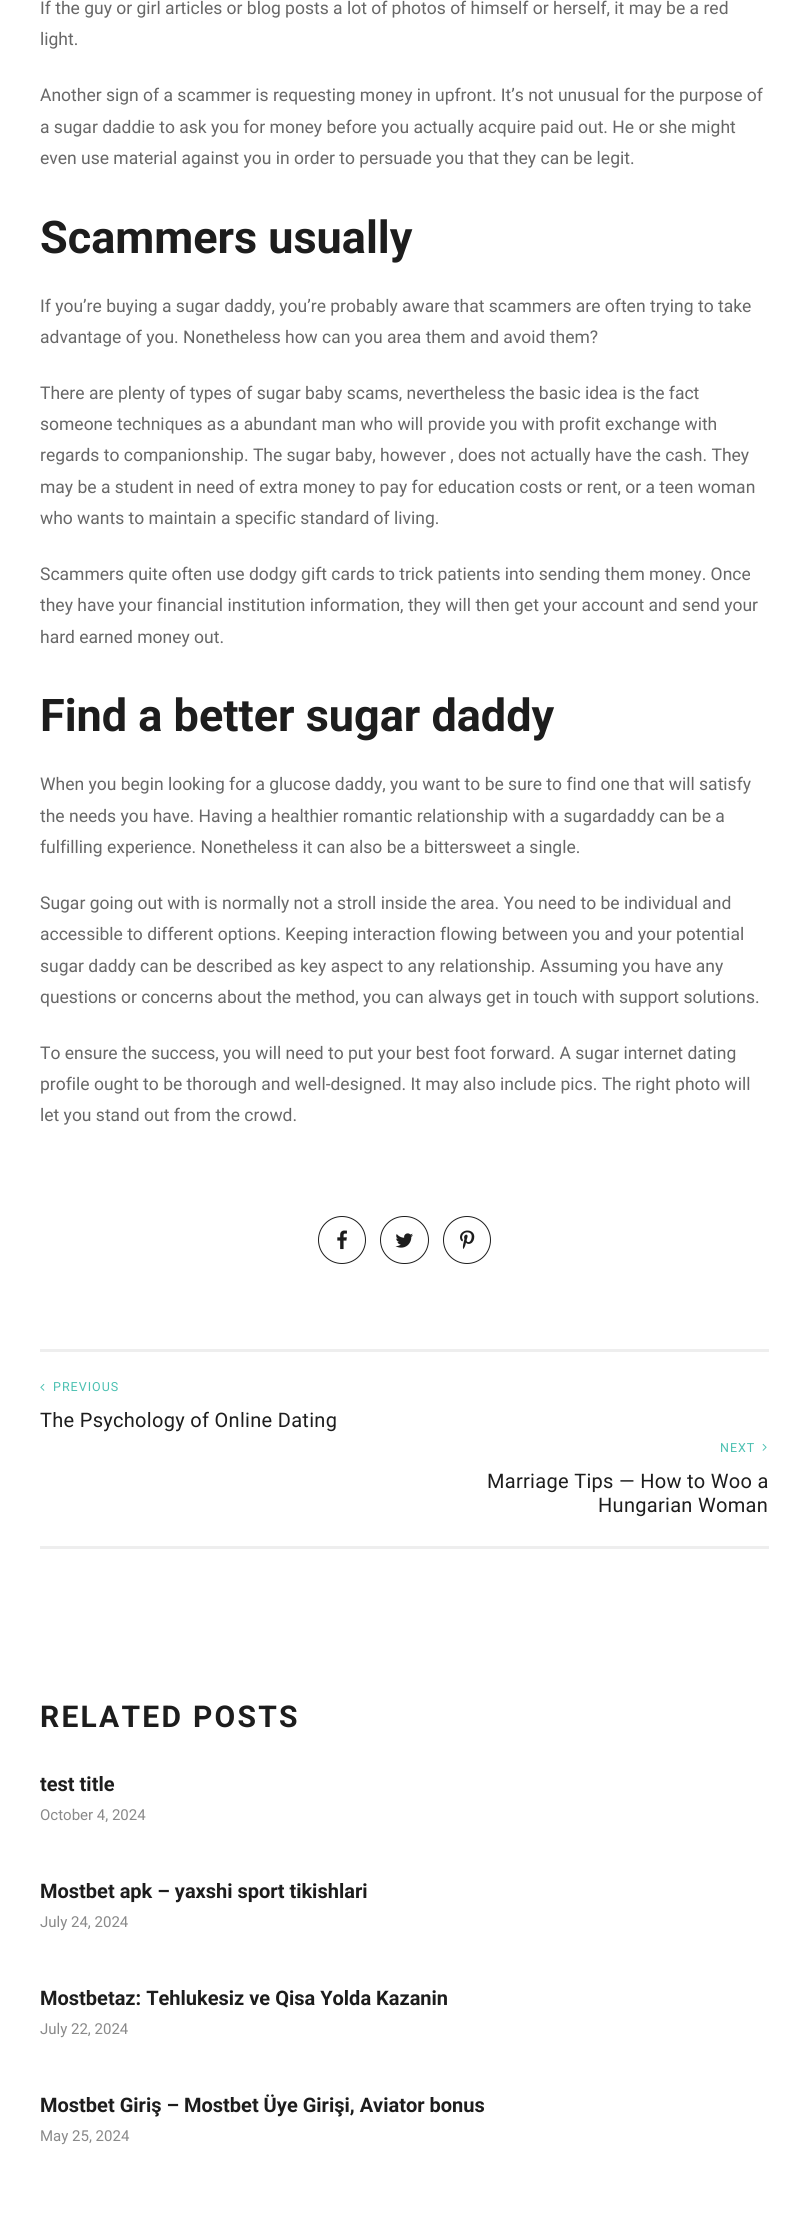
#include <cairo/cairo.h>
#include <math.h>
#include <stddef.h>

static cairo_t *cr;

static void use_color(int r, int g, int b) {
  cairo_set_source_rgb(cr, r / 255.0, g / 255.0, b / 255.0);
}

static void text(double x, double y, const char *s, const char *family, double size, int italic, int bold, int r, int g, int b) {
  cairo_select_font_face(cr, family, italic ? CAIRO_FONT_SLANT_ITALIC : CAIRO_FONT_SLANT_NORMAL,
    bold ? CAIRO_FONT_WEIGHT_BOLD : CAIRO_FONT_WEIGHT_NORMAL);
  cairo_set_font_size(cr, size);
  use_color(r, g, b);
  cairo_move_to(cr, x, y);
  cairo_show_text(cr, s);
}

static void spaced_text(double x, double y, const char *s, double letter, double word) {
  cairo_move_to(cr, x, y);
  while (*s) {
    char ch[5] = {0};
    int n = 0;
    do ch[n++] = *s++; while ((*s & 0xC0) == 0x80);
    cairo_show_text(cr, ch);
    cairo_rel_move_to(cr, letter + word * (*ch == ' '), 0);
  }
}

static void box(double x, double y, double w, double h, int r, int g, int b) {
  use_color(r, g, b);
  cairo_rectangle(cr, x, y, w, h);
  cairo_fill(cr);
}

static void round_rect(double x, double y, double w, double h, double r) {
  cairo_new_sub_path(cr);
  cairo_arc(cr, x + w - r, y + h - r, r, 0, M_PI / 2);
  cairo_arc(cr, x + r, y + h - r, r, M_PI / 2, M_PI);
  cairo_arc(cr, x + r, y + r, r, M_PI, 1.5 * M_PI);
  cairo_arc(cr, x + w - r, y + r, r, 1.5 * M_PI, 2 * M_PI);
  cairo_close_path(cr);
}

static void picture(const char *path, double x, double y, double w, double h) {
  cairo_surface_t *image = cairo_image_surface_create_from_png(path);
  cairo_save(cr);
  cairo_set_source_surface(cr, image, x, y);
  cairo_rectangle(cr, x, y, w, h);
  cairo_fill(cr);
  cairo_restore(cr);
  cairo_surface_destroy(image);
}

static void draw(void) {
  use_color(255, 255, 255);
  cairo_paint(cr);
  cairo_arc(cr, 342, 1240, 23.5, 0, 2 * M_PI);
  use_color(29, 29, 29);
  cairo_set_line_width(cr, 1);
  cairo_stroke(cr);
  picture("img_01.png", 337, 1230, 10, 20);
  round_rect(380.5, 1216.5, 48, 47, 23.5);
  cairo_stroke(cr);
  picture("img_02.png", 395, 1233, 18, 15);
  cairo_arc(cr, 467, 1240, 23.5, 0, 2 * M_PI);
  cairo_stroke(cr);
  picture("img_03.png", 460, 1230, 15, 19);
  box(40, 1349, 729, 3, 238, 238, 238);
  box(40, 1546, 729, 3, 238, 238, 238);
  picture("img_04.png", 40, 1383, 5, 8);
  picture("img_05.png", 762, 1443, 5, 8);
  text(40, 14, "If the guy or girl articles or blog posts a lot of photos of himself or herself, it may be a red", "Roboto", 17.5, 0, 0, 103, 103, 103);
  text(40, 45, "light.", "Roboto", 17.5, 0, 0, 103, 103, 103);
  text(40, 101, "Another sign of a scammer is requesting money in upfront. It’s not unusual for the purpose of", "Roboto", 17.5, 0, 0, 103, 103, 103);
  text(40, 133, "a sugar daddie to ask you for money before you actually acquire paid out. He or she might", "Roboto", 17.5, 0, 0, 103, 103, 103);
  text(40, 164, "even use material against you in order to persuade you that they can be legit.", "Roboto", 17.5, 0, 0, 103, 103, 103);
  text(40, 253, "Scammers usually", "Roboto", 45, 0, 1, 29, 29, 29);
  text(40, 312, "If you’re buying a sugar daddy, you’re probably aware that scammers are often trying to take", "Roboto", 17.5, 0, 0, 103, 103, 103);
  text(40, 343, "advantage of you. Nonetheless how can you area them and avoid them?", "Roboto", 17.5, 0, 0, 103, 103, 103);
  text(40, 399, "There are plenty of types of sugar baby scams, nevertheless the basic idea is the fact", "Roboto", 17.5, 0, 0, 103, 103, 103);
  text(40, 430, "someone techniques as a abundant man who will provide you with profit exchange with", "Roboto", 17.5, 0, 0, 103, 103, 103);
  text(40, 461, "regards to companionship. The sugar baby, however , does not actually have the cash. They", "Roboto", 17.5, 0, 0, 103, 103, 103);
  text(40, 493, "may be a student in need of extra money to pay for education costs or rent, or a teen woman", "Roboto", 17.5, 0, 0, 103, 103, 103);
  text(40, 524, "who wants to maintain a specific standard of living.", "Roboto", 17.5, 0, 0, 103, 103, 103);
  text(40, 580, "Scammers quite often use dodgy gift cards to trick patients into sending them money. Once", "Roboto", 17.5, 0, 0, 103, 103, 103);
  text(40, 611, "they have your financial institution information, they will then get your account and send your", "Roboto", 17.5, 0, 0, 103, 103, 103);
  text(40, 643, "hard earned money out.", "Roboto", 17.5, 0, 0, 103, 103, 103);
  text(40, 731, "Find a better sugar daddy", "Roboto", 45, 0, 1, 29, 29, 29);
  text(40, 790, "When you begin looking for a glucose daddy, you want to be sure to find one that will satisfy", "Roboto", 17.5, 0, 0, 103, 103, 103);
  text(40, 822, "the needs you have. Having a healthier romantic relationship with a sugardaddy can be a", "Roboto", 17.5, 0, 0, 103, 103, 103);
  text(40, 853, "fulfilling experience. Nonetheless it can also be a bittersweet a single.", "Roboto", 17.5, 0, 0, 103, 103, 103);
  text(40, 909, "Sugar going out with is normally not a stroll inside the area. You need to be individual and", "Roboto", 17.5, 0, 0, 103, 103, 103);
  text(40, 940, "accessible to different options. Keeping interaction flowing between you and your potential", "Roboto", 17.5, 0, 0, 103, 103, 103);
  text(40, 972, "sugar daddy can be described as key aspect to any relationship. Assuming you have any", "Roboto", 17.5, 0, 0, 103, 103, 103);
  text(40, 1003, "questions or concerns about the method, you can always get in touch with support solutions.", "Roboto", 17.5, 0, 0, 103, 103, 103);
  text(40, 1059, "To ensure the success, you will need to put your best foot forward. A sugar internet dating", "Roboto", 17.5, 0, 0, 103, 103, 103);
  text(40, 1090, "profile ought to be thorough and well-designed. It may also include pics. The right photo will", "Roboto", 17.5, 0, 0, 103, 103, 103);
  text(40, 1121, "let you stand out from the crowd.", "Roboto", 17.5, 0, 0, 103, 103, 103);
  cairo_set_font_size(cr, 12.5);
  use_color(75, 192, 177);
  spaced_text(53, 1391, "PREVIOUS", 1, 0);
  cairo_set_font_size(cr, 20);
  use_color(29, 29, 29);
  spaced_text(40, 1427, "The Psychology of Online Dating", 0.3, 0);
  cairo_set_font_size(cr, 12.5);
  use_color(75, 192, 177);
  spaced_text(720, 1452, "NEXT", 1, 0);
  cairo_set_font_size(cr, 20);
  use_color(29, 29, 29);
  spaced_text(487, 1488, "Marriage Tips — How to Woo a", 0.3, 0);
  spaced_text(598, 1512, "Hungarian Woman", 0.3, 0);
  cairo_select_font_face(cr, "Roboto", CAIRO_FONT_SLANT_NORMAL, CAIRO_FONT_WEIGHT_BOLD);
  cairo_set_font_size(cr, 30);
  spaced_text(40, 1727, "RELATED POSTS", 2.25, 0);
  text(40, 1791, "test title", "Roboto", 20, 0, 1, 29, 29, 29);
  text(40, 1820, "October 4, 2024", "Roboto", 15, 0, 0, 137, 137, 137);
  text(40, 1898, "Mostbet apk – yaxshi sport tikishlari", "Roboto", 20, 0, 1, 29, 29, 29);
  text(40, 1927, "July 24, 2024", "Roboto", 15, 0, 0, 137, 137, 137);
  text(40, 2005, "Mostbetaz: Tehlukesiz ve Qisa Yolda Kazanin", "Roboto", 20, 0, 1, 29, 29, 29);
  text(40, 2034, "July 22, 2024", "Roboto", 15, 0, 0, 137, 137, 137);
  text(40, 2112, "Mostbet Giriş – Mostbet Üye Girişi, Aviator bonus", "Roboto", 20, 0, 1, 29, 29, 29);
  text(40, 2141, "May 25, 2024", "Roboto", 15, 0, 0, 137, 137, 137);
}

int main(void) {
  cairo_surface_t *surface = cairo_image_surface_create(CAIRO_FORMAT_RGB24, 808, 2226);
  cr = cairo_create(surface);
  cairo_font_options_t *options = cairo_font_options_create();
  cairo_font_options_set_hint_metrics(options, CAIRO_HINT_METRICS_OFF);
  cairo_font_options_set_hint_style(options, CAIRO_HINT_STYLE_NONE);
  cairo_set_font_options(cr, options);
  cairo_set_miter_limit(cr, 4);
  draw();
  cairo_surface_write_to_png(surface, "out.png");
  cairo_font_options_destroy(options);
  cairo_destroy(cr);
  cairo_surface_destroy(surface);
  return 0;
}
